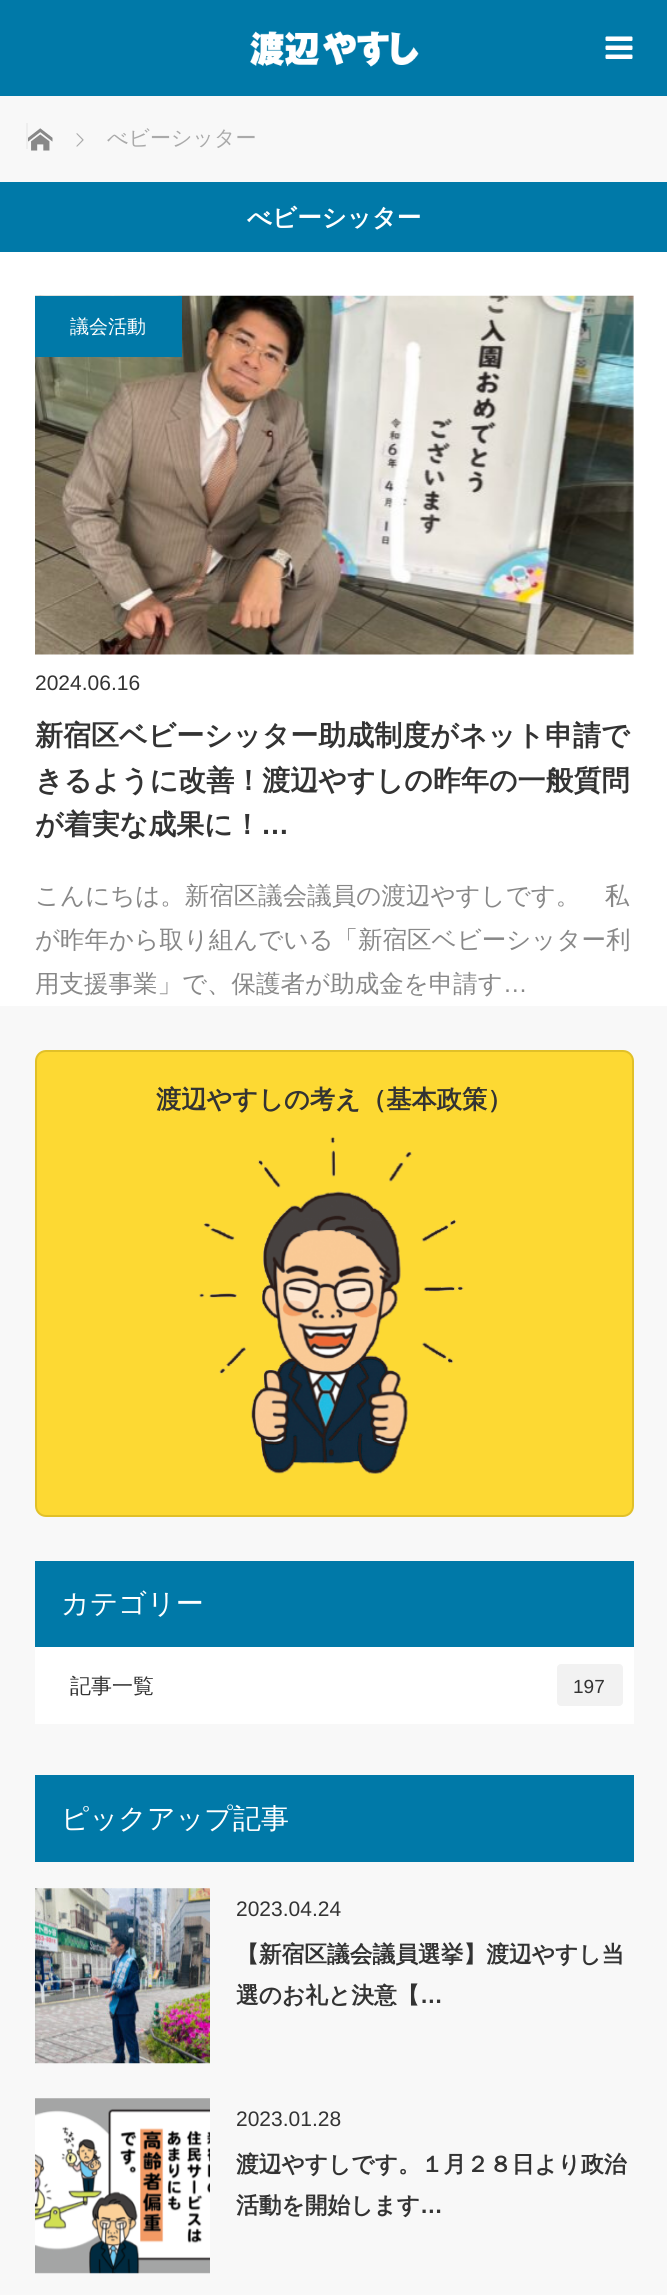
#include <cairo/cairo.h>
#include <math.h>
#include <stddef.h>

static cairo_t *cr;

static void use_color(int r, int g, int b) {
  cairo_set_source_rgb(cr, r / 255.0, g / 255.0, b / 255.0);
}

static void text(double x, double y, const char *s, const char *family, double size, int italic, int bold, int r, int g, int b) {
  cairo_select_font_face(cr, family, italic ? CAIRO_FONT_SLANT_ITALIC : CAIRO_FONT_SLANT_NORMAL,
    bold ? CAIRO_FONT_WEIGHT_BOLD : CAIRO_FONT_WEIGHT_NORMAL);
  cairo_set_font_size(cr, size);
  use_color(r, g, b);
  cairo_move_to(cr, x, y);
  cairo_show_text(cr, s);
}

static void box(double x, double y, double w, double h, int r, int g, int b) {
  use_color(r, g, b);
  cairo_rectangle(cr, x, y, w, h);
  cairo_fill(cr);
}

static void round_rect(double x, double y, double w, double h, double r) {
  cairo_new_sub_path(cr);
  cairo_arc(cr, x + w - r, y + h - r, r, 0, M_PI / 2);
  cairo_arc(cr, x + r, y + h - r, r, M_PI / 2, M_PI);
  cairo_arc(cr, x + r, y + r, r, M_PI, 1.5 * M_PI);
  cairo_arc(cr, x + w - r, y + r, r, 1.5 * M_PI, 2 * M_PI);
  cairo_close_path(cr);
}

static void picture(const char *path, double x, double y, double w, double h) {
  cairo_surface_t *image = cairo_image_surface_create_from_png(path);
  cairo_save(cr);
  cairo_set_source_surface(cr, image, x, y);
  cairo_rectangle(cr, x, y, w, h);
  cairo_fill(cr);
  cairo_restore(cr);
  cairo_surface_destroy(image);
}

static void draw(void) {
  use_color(248, 248, 248);
  cairo_paint(cr);
  box(0, 0, 667, 96, 0, 121, 168);
  picture("img_01.png", 250, 31, 169, 36);
  picture("img_02.png", 605, 36, 28, 23);
  box(26, 123, 2, 26, 238, 238, 238);
  picture("img_03.png", 28, 128, 25, 23);
  picture("img_04.png", 76, 133, 8, 14);
  box(0, 252, 667, 754, 255, 255, 255);
  box(0, 182, 667, 70, 0, 121, 168);
  picture("img_05.png", 35, 295, 599, 360);
  box(35, 296, 147, 61, 0, 121, 168);
  use_color(253, 217, 51);
  round_rect(36, 1051, 597, 465, 10);
  cairo_fill_preserve(cr);
  use_color(225, 192, 40);
  cairo_stroke(cr);
  picture("img_06.png", 199, 1137, 265, 337);
  box(35, 1561, 599, 86, 0, 121, 168);
  box(35, 1647, 599, 77, 255, 255, 255);
  use_color(242, 242, 242);
  round_rect(557, 1664, 66, 42, 4);
  cairo_fill(cr);
  box(35, 1775, 599, 87, 0, 121, 168);
  picture("img_07.png", 35, 1888, 175, 176);
  picture("img_08.png", 35, 2098, 175, 176);
  text(107, 145, "べビーシッター", "WenQuanYi Zen Hei Medium", 21, 0, 0, 170, 170, 170);
  text(247, 226, "べビーシッター", "WenQuanYi Zen Hei", 24.5, 0, 1, 255, 255, 255);
  text(70, 333, "議会活動", "WenQuanYi Zen Hei Medium", 19, 0, 0, 255, 255, 255);
  text(35, 690, "2024.06.16", "Liberation Sans", 21, 0, 0, 51, 51, 51);
  text(35, 745, "新宿区ベビーシッター助成制度がネット申請で", "WenQuanYi Zen Hei", 28, 0, 1, 51, 51, 51);
  text(35, 790, "きるように改善！渡辺やすしの昨年の一般質問", "WenQuanYi Zen Hei", 28, 0, 1, 51, 51, 51);
  text(35, 834, "が着実な成果に！", "WenQuanYi Zen Hei", 28, 0, 1, 51, 51, 51);
  text(261, 834, "…", "Liberation Sans", 28, 0, 1, 51, 51, 51);
  text(35, 904, "こんにちは。新宿区議会議員の渡辺やすしです。　私", "WenQuanYi Zen Hei Medium", 24.5, 0, 0, 136, 136, 136);
  text(35, 948, "が昨年から取り組んでいる「新宿区ベビーシッター利", "WenQuanYi Zen Hei Medium", 24.5, 0, 0, 136, 136, 136);
  text(35, 992, "用支援事業」で、保護者が助成金を申請す", "WenQuanYi Zen Hei Medium", 24.5, 0, 0, 136, 136, 136);
  text(503, 992, "…", "Liberation Sans", 24.5, 0, 0, 136, 136, 136);
  text(156, 1108, "渡辺やすしの考え（基本政策）", "WenQuanYi Zen Hei", 25.25, 0, 1, 51, 51, 51);
  text(61, 1613, "カテゴリー", "WenQuanYi Zen Hei Medium", 28, 0, 0, 255, 255, 255);
  text(70, 1693, "記事一覧", "WenQuanYi Zen Hei Medium", 21, 0, 0, 51, 51, 51);
  text(573, 1693, "197", "Liberation Sans", 19, 0, 0, 51, 51, 51);
  text(61, 1828, "ピックアップ記事", "WenQuanYi Zen Hei Medium", 28, 0, 0, 255, 255, 255);
  text(236, 1916, "2023.04.24", "Liberation Sans", 21, 0, 0, 51, 51, 51);
  text(236, 1962, "【新宿区議会議員選挙】渡辺やすし当", "WenQuanYi Zen Hei", 22.75, 0, 1, 51, 51, 51);
  text(236, 2003, "選のお礼と決意【", "WenQuanYi Zen Hei", 22.75, 0, 1, 51, 51, 51);
  text(420, 2003, "…", "Liberation Sans", 22.75, 0, 1, 51, 51, 51);
  text(236, 2126, "2023.01.28", "Liberation Sans", 21, 0, 0, 51, 51, 51);
  text(236, 2172, "渡辺やすしです。１月２８日より政治", "WenQuanYi Zen Hei", 22.75, 0, 1, 51, 51, 51);
  text(236, 2213, "活動を開始します", "WenQuanYi Zen Hei", 22.75, 0, 1, 51, 51, 51);
  text(420, 2213, "…", "Liberation Sans", 22.75, 0, 1, 51, 51, 51);
}

int main(void) {
  cairo_surface_t *surface = cairo_image_surface_create(CAIRO_FORMAT_RGB24, 667, 2295);
  cr = cairo_create(surface);
  cairo_font_options_t *options = cairo_font_options_create();
  cairo_font_options_set_hint_metrics(options, CAIRO_HINT_METRICS_OFF);
  cairo_font_options_set_hint_style(options, CAIRO_HINT_STYLE_NONE);
  cairo_set_font_options(cr, options);
  cairo_set_miter_limit(cr, 4);
  draw();
  cairo_surface_write_to_png(surface, "out.png");
  cairo_font_options_destroy(options);
  cairo_destroy(cr);
  cairo_surface_destroy(surface);
  return 0;
}
